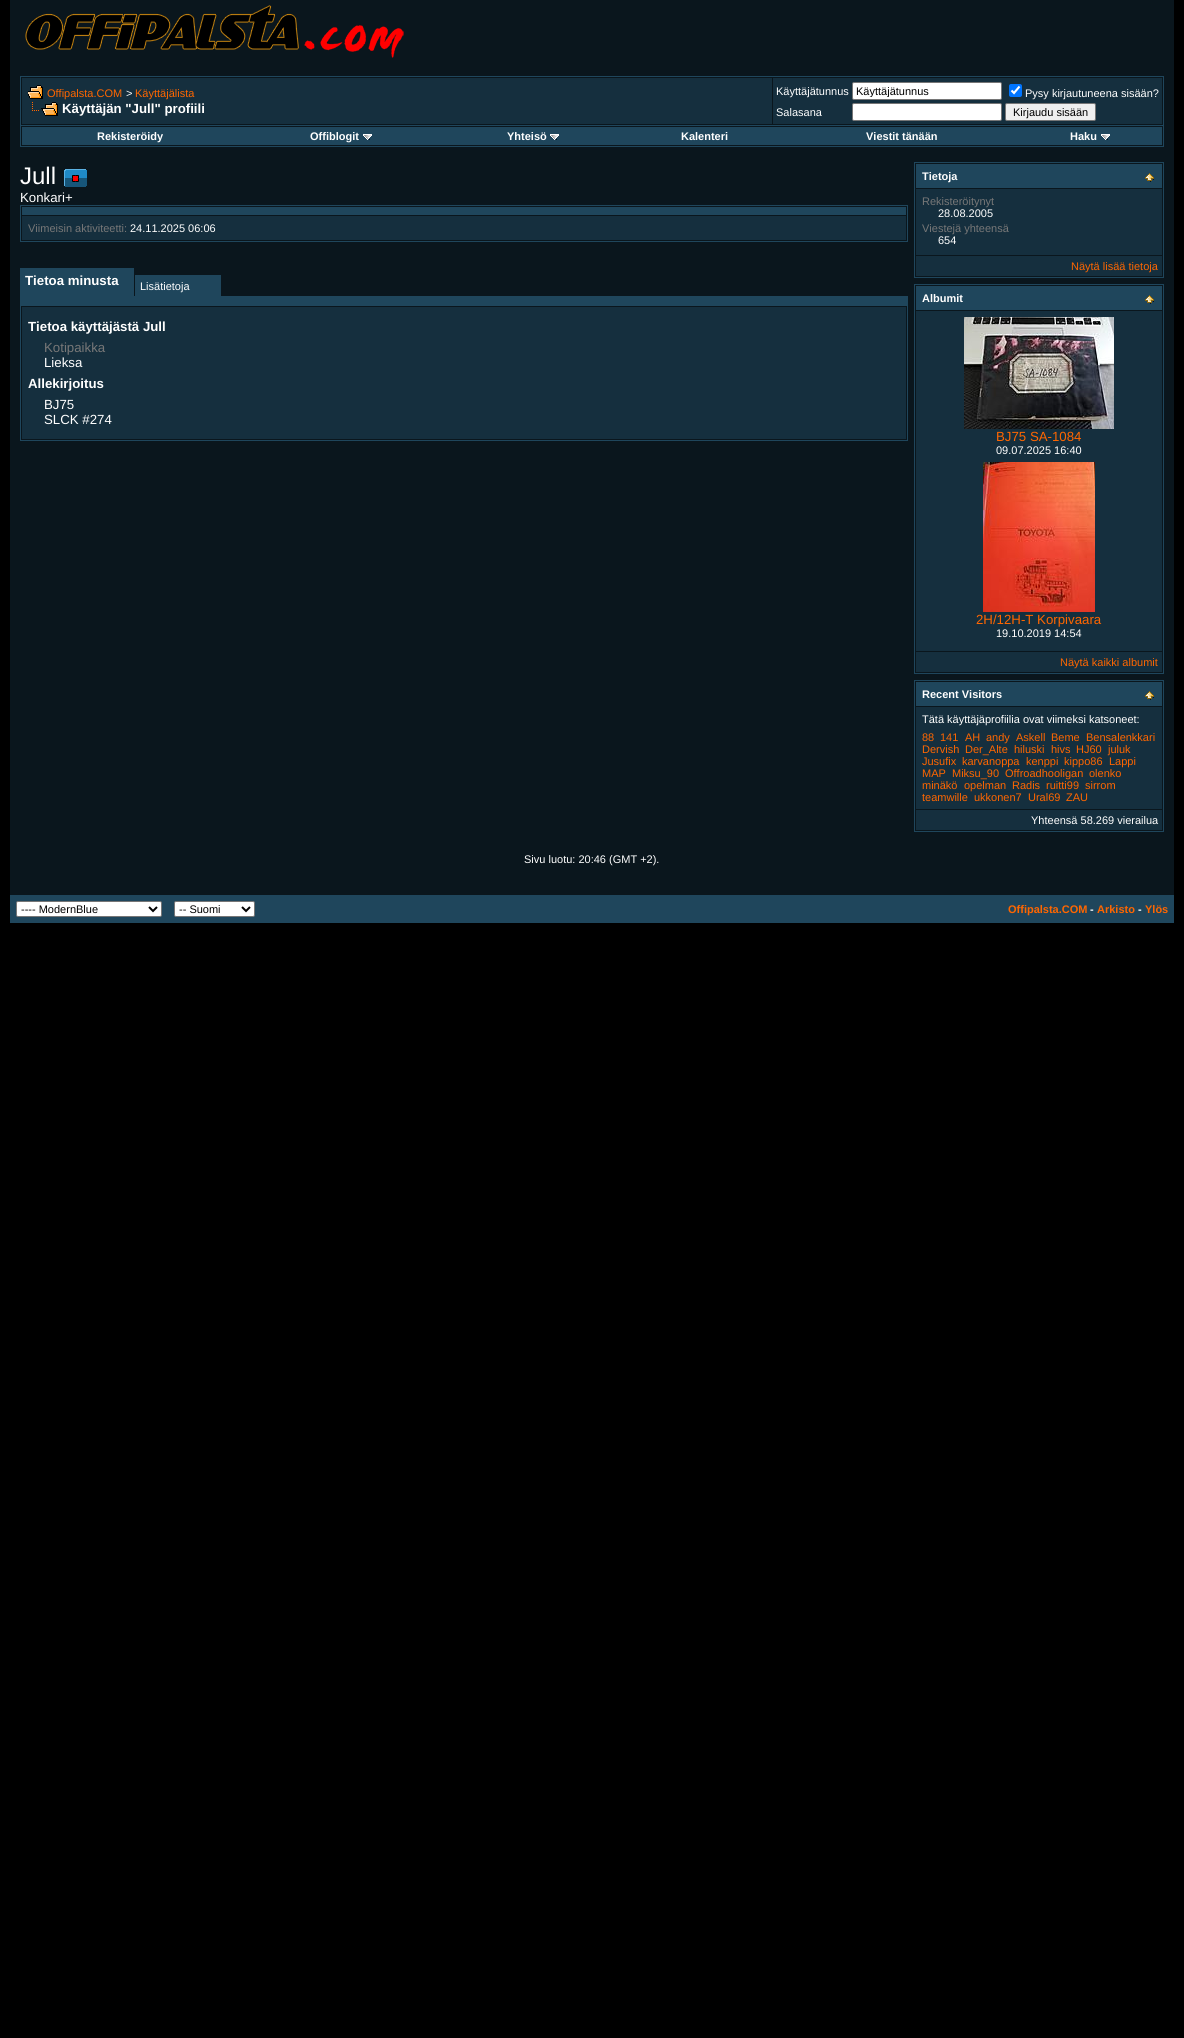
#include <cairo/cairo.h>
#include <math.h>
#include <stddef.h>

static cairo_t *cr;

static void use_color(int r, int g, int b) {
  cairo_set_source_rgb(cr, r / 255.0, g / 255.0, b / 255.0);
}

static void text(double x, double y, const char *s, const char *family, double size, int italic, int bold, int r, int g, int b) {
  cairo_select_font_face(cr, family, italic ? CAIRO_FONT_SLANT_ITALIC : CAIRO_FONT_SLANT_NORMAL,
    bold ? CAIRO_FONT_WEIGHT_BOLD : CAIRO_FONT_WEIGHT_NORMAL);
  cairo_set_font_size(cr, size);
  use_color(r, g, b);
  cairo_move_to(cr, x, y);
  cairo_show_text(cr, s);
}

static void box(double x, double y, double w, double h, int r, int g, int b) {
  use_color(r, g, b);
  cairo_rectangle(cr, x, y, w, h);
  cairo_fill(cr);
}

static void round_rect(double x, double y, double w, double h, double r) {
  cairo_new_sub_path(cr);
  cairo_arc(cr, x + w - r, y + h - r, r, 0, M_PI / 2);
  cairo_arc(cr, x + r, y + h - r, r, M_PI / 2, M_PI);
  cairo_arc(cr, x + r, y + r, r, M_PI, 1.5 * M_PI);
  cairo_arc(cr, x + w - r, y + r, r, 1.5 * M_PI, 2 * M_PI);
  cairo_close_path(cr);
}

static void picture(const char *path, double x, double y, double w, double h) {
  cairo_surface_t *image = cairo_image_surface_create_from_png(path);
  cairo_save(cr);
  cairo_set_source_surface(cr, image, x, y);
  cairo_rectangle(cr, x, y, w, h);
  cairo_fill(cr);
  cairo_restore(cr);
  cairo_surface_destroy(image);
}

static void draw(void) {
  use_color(0, 0, 0);
  cairo_paint(cr);
  box(10, 0, 1164, 895, 10, 22, 29);
  picture("img_01.png", 25, 5, 379, 53);
  cairo_rectangle(cr, 20.5, 76.5, 1143, 49);
  use_color(31, 70, 92);
  cairo_set_line_width(cr, 1);
  cairo_stroke(cr);
  box(22, 78, 750, 46, 21, 47, 62);
  picture("img_02.png", 28, 85, 15, 14);
  picture("img_03.png", 32, 102, 26, 15);
  box(773, 78, 389, 46, 21, 47, 62);
  use_color(255, 255, 255);
  round_rect(852.5, 82.5, 149, 17, 1.5);
  cairo_fill_preserve(cr);
  use_color(118, 118, 118);
  cairo_stroke(cr);
  use_color(0, 117, 255);
  round_rect(1009, 84, 13, 13, 2);
  cairo_fill(cr);
  cairo_new_path(cr);
  cairo_move_to(cr, 1011.5, 90.5);
  cairo_line_to(cr, 1014, 93);
  cairo_line_to(cr, 1019.5, 86.5);
  use_color(255, 255, 255);
  cairo_set_line_width(cr, 2.1);
  cairo_stroke(cr);
  round_rect(852.5, 103.5, 149, 17, 1.5);
  cairo_fill_preserve(cr);
  use_color(118, 118, 118);
  cairo_set_line_width(cr, 1);
  cairo_stroke(cr);
  use_color(239, 239, 239);
  round_rect(1005.5, 103.5, 90, 17, 1.5);
  cairo_fill_preserve(cr);
  use_color(118, 118, 118);
  cairo_stroke(cr);
  box(1163, 126, 1, 21, 31, 70, 92);
  box(20, 146, 1144, 1, 31, 70, 92);
  box(20, 126, 1, 21, 31, 70, 92);
  box(22, 127, 1140, 18, 31, 70, 92);
  picture("img_04.png", 363, 134, 9, 6);
  picture("img_04.png", 550, 134, 9, 6);
  picture("img_04.png", 1101, 134, 9, 6);
  picture("img_05.png", 64, 169, 23, 18);
  cairo_rectangle(cr, 20.5, 205.5, 887, 36);
  cairo_stroke(cr);
  box(22, 207, 884, 8, 31, 70, 92);
  box(22, 216, 884, 24, 21, 47, 62);
  box(20, 268, 114, 28, 31, 70, 92);
  box(135, 275, 86, 21, 31, 70, 92);
  box(20, 296, 888, 9, 31, 70, 92);
  cairo_rectangle(cr, 20.5, 305.5, 887, 135);
  cairo_stroke(cr);
  box(22, 307, 884, 132, 21, 47, 62);
  cairo_rectangle(cr, 914.5, 162.5, 249, 115);
  use_color(31, 70, 92);
  cairo_stroke(cr);
  box(916, 164, 246, 24, 31, 70, 92);
  picture("img_06.png", 1145, 173, 9, 9);
  box(916, 189, 246, 66, 21, 47, 62);
  box(916, 256, 246, 20, 21, 47, 62);
  cairo_rectangle(cr, 914.5, 284.5, 249, 389);
  use_color(31, 70, 92);
  cairo_stroke(cr);
  box(916, 286, 246, 24, 31, 70, 92);
  picture("img_06.png", 1145, 295, 9, 9);
  box(916, 311, 246, 340, 21, 47, 62);
  picture("img_07.png", 964, 317, 150, 112);
  picture("img_08.png", 983, 462, 112, 150);
  box(916, 652, 246, 20, 21, 47, 62);
  cairo_rectangle(cr, 914.5, 680.5, 249, 151);
  use_color(31, 70, 92);
  cairo_stroke(cr);
  box(916, 682, 246, 24, 31, 70, 92);
  picture("img_06.png", 1145, 691, 9, 9);
  box(916, 707, 246, 102, 21, 47, 62);
  box(916, 810, 246, 20, 21, 47, 62);
  box(10, 895, 1164, 28, 31, 70, 92);
  use_color(255, 255, 255);
  round_rect(16.5, 901.5, 145, 15, 1.5);
  cairo_fill_preserve(cr);
  use_color(118, 118, 118);
  cairo_stroke(cr);
  cairo_new_path(cr);
  cairo_move_to(cr, 149, 907);
  cairo_line_to(cr, 153, 911);
  cairo_line_to(cr, 157, 907);
  use_color(0, 0, 0);
  cairo_set_line_width(cr, 2);
  cairo_stroke(cr);
  use_color(255, 255, 255);
  round_rect(174.5, 901.5, 80, 15, 1.5);
  cairo_fill_preserve(cr);
  use_color(118, 118, 118);
  cairo_set_line_width(cr, 1);
  cairo_stroke(cr);
  cairo_new_path(cr);
  cairo_move_to(cr, 242, 907);
  cairo_line_to(cr, 246, 911);
  cairo_line_to(cr, 250, 907);
  use_color(0, 0, 0);
  cairo_set_line_width(cr, 2);
  cairo_stroke(cr);
  text(47, 97, "Offipalsta.COM", "Liberation Sans", 11, 0, 0, 255, 102, 0);
  text(126, 97, ">", "Liberation Sans", 11, 0, 0, 255, 255, 255);
  text(135, 97, "Käyttäjälista", "Liberation Sans", 11, 0, 0, 255, 102, 0);
  text(62, 113, "Käyttäjän \"Jull\" profiili", "Liberation Sans", 13.25, 0, 1, 255, 255, 255);
  text(776, 95, "Käyttäjätunnus", "Liberation Sans", 11, 0, 0, 255, 255, 255);
  cairo_save(cr);
  cairo_rectangle(cr, 856, 85, 142, 12);
  cairo_clip(cr);
  text(856, 95, "Käyttäjätunnus", "Liberation Sans", 11, 0, 0, 0, 0, 0);
  cairo_restore(cr);
  text(1025, 97, "Pysy kirjautuneena sisään?", "Liberation Sans", 11, 0, 0, 255, 255, 255);
  text(776, 116, "Salasana", "Liberation Sans", 11, 0, 0, 255, 255, 255);
  text(1013, 116, "Kirjaudu sisään", "Liberation Sans", 11, 0, 0, 0, 0, 0);
  text(97, 140, "Rekisteröidy", "Liberation Sans", 11, 0, 1, 255, 255, 255);
  text(310, 140, "Offiblogit", "Liberation Sans", 11, 0, 1, 255, 255, 255);
  text(507, 140, "Yhteisö", "Liberation Sans", 11, 0, 1, 255, 255, 255);
  text(681, 140, "Kalenteri", "Liberation Sans", 11, 0, 1, 255, 255, 255);
  text(866, 140, "Viestit tänään", "Liberation Sans", 11, 0, 1, 255, 255, 255);
  text(1070, 140, "Haku", "Liberation Sans", 11, 0, 1, 255, 255, 255);
  text(20, 184, "Jull", "Liberation Sans", 24, 0, 0, 255, 255, 255);
  text(20, 202, "Konkari+", "Liberation Sans", 13.25, 0, 0, 255, 255, 255);
  text(28, 232, "Viimeisin aktiviteetti:", "Liberation Sans", 11, 0, 0, 119, 119, 119);
  text(130, 232, "24.11.2025 06:06", "Liberation Sans", 11, 0, 0, 255, 255, 255);
  text(25, 285, "Tietoa minusta", "Liberation Sans", 13.25, 0, 1, 255, 255, 255);
  text(140, 290, "Lisätietoja", "Liberation Sans", 11, 0, 0, 255, 255, 255);
  text(28, 331, "Tietoa käyttäjästä Jull", "Liberation Sans", 13.25, 0, 1, 255, 255, 255);
  text(44, 352, "Kotipaikka", "Liberation Sans", 13.25, 0, 0, 119, 119, 119);
  text(44, 367, "Lieksa", "Liberation Sans", 13.25, 0, 0, 255, 255, 255);
  text(28, 388, "Allekirjoitus", "Liberation Sans", 13.25, 0, 1, 255, 255, 255);
  text(44, 409, "BJ75", "Liberation Sans", 13.25, 0, 0, 255, 255, 255);
  text(44, 424, "SLCK #274", "Liberation Sans", 13.25, 0, 0, 255, 255, 255);
  text(922, 180, "Tietoja", "Liberation Sans", 11, 0, 1, 255, 255, 255);
  text(922, 205, "Rekisteröitynyt", "Liberation Sans", 11, 0, 0, 119, 119, 119);
  text(938, 217, "28.08.2005", "Liberation Sans", 11, 0, 0, 255, 255, 255);
  text(922, 232, "Viestejä yhteensä", "Liberation Sans", 11, 0, 0, 119, 119, 119);
  text(938, 244, "654", "Liberation Sans", 11, 0, 0, 255, 255, 255);
  text(1071, 270, "Näytä lisää tietoja", "Liberation Sans", 11, 0, 0, 255, 102, 0);
  text(922, 302, "Albumit", "Liberation Sans", 11, 0, 1, 255, 255, 255);
  text(996, 441, "BJ75 SA-1084", "Liberation Sans", 13.25, 0, 0, 255, 102, 0);
  text(996, 454, "09.07.2025 16:40", "Liberation Sans", 11, 0, 0, 255, 255, 255);
  text(976, 624, "2H/12H-T Korpivaara", "Liberation Sans", 13.25, 0, 0, 255, 102, 0);
  text(996, 637, "19.10.2019 14:54", "Liberation Sans", 11, 0, 0, 255, 255, 255);
  text(1060, 666, "Näytä kaikki albumit", "Liberation Sans", 11, 0, 0, 255, 102, 0);
  text(922, 698, "Recent Visitors", "Liberation Sans", 11, 0, 1, 255, 255, 255);
  text(922, 723, "Tätä käyttäjäprofiilia ovat viimeksi katsoneet:", "Liberation Sans", 11, 0, 0, 255, 255, 255);
  text(922, 741, "88", "Liberation Sans", 11, 0, 0, 255, 102, 0);
  text(940, 741, "141", "Liberation Sans", 11, 0, 0, 255, 102, 0);
  text(965, 741, "AH", "Liberation Sans", 11, 0, 0, 255, 102, 0);
  text(986, 741, "andy", "Liberation Sans", 11, 0, 0, 255, 102, 0);
  text(1016, 741, "Askell", "Liberation Sans", 11, 0, 0, 255, 102, 0);
  text(1051, 741, "Beme", "Liberation Sans", 11, 0, 0, 255, 102, 0);
  text(1086, 741, "Bensalenkkari", "Liberation Sans", 11, 0, 0, 255, 102, 0);
  text(922, 753, "Dervish", "Liberation Sans", 11, 0, 0, 255, 102, 0);
  text(965, 753, "Der_Alte", "Liberation Sans", 11, 0, 0, 255, 102, 0);
  text(1014, 753, "hiluski", "Liberation Sans", 11, 0, 0, 255, 102, 0);
  text(1051, 753, "hivs", "Liberation Sans", 11, 0, 0, 255, 102, 0);
  text(1076, 753, "HJ60", "Liberation Sans", 11, 0, 0, 255, 102, 0);
  text(1108, 753, "juluk", "Liberation Sans", 11, 0, 0, 255, 102, 0);
  text(922, 765, "Jusufix", "Liberation Sans", 11, 0, 0, 255, 102, 0);
  text(962, 765, "karvanoppa", "Liberation Sans", 11, 0, 0, 255, 102, 0);
  text(1026, 765, "kenppi", "Liberation Sans", 11, 0, 0, 255, 102, 0);
  text(1064, 765, "kippo86", "Liberation Sans", 11, 0, 0, 255, 102, 0);
  text(1109, 765, "Lappi", "Liberation Sans", 11, 0, 0, 255, 102, 0);
  text(922, 777, "MAP", "Liberation Sans", 11, 0, 0, 255, 102, 0);
  text(952, 777, "Miksu_90", "Liberation Sans", 11, 0, 0, 255, 102, 0);
  text(1005, 777, "Offroadhooligan", "Liberation Sans", 11, 0, 0, 255, 102, 0);
  text(1089, 777, "olenko", "Liberation Sans", 11, 0, 0, 255, 102, 0);
  text(922, 789, "minäkö", "Liberation Sans", 11, 0, 0, 255, 102, 0);
  text(964, 789, "opelman", "Liberation Sans", 11, 0, 0, 255, 102, 0);
  text(1012, 789, "Radis", "Liberation Sans", 11, 0, 0, 255, 102, 0);
  text(1046, 789, "ruitti99", "Liberation Sans", 11, 0, 0, 255, 102, 0);
  text(1085, 789, "sirrom", "Liberation Sans", 11, 0, 0, 255, 102, 0);
  text(922, 801, "teamwille", "Liberation Sans", 11, 0, 0, 255, 102, 0);
  text(974, 801, "ukkonen7", "Liberation Sans", 11, 0, 0, 255, 102, 0);
  text(1028, 801, "Ural69", "Liberation Sans", 11, 0, 0, 255, 102, 0);
  text(1066, 801, "ZAU", "Liberation Sans", 11, 0, 0, 255, 102, 0);
  text(1031, 824, "Yhteensä 58.269 vierailua", "Liberation Sans", 11, 0, 0, 255, 255, 255);
  text(524, 863, "Sivu luotu: 20:46 (GMT +2).", "Liberation Sans", 11, 0, 0, 255, 255, 255);
  text(21, 913, "---- ModernBlue", "Liberation Sans", 11, 0, 0, 0, 0, 0);
  text(179, 913, "-- Suomi", "Liberation Sans", 11, 0, 0, 0, 0, 0);
  text(1008, 913, "Offipalsta.COM", "Liberation Sans", 11, 0, 1, 255, 102, 0);
  text(1090, 913, "-", "Liberation Sans", 11, 0, 1, 255, 255, 255);
  text(1097, 913, "Arkisto", "Liberation Sans", 11, 0, 1, 255, 102, 0);
  text(1138, 913, "-", "Liberation Sans", 11, 0, 1, 255, 255, 255);
  text(1145, 913, "Ylös", "Liberation Sans", 11, 0, 1, 255, 102, 0);
}

int main(void) {
  cairo_surface_t *surface = cairo_image_surface_create(CAIRO_FORMAT_RGB24, 1184, 2038);
  cr = cairo_create(surface);
  cairo_font_options_t *options = cairo_font_options_create();
  cairo_font_options_set_hint_metrics(options, CAIRO_HINT_METRICS_OFF);
  cairo_font_options_set_hint_style(options, CAIRO_HINT_STYLE_NONE);
  cairo_set_font_options(cr, options);
  cairo_set_miter_limit(cr, 4);
  draw();
  cairo_surface_write_to_png(surface, "out.png");
  cairo_font_options_destroy(options);
  cairo_destroy(cr);
  cairo_surface_destroy(surface);
  return 0;
}
